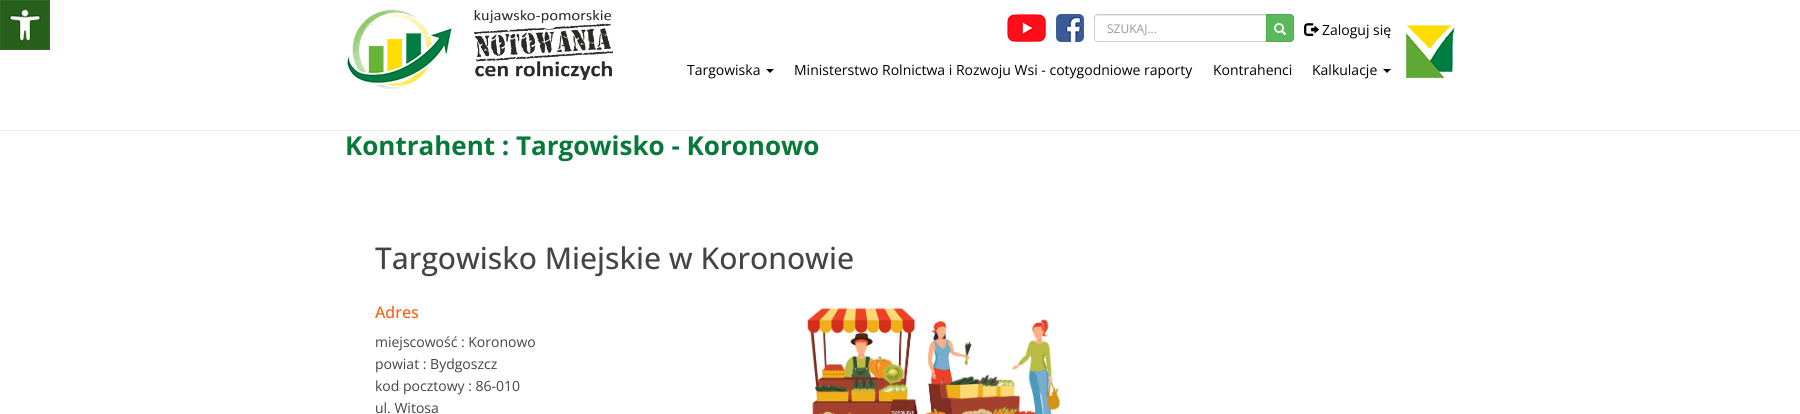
#include <cairo/cairo.h>
#include <math.h>
#include <stddef.h>

static cairo_t *cr;

static void use_color(int r, int g, int b) {
  cairo_set_source_rgb(cr, r / 255.0, g / 255.0, b / 255.0);
}

static void text(double x, double y, const char *s, const char *family, double size, int italic, int bold, int r, int g, int b) {
  cairo_select_font_face(cr, family, italic ? CAIRO_FONT_SLANT_ITALIC : CAIRO_FONT_SLANT_NORMAL,
    bold ? CAIRO_FONT_WEIGHT_BOLD : CAIRO_FONT_WEIGHT_NORMAL);
  cairo_set_font_size(cr, size);
  use_color(r, g, b);
  cairo_move_to(cr, x, y);
  cairo_show_text(cr, s);
}

static void box(double x, double y, double w, double h, int r, int g, int b) {
  use_color(r, g, b);
  cairo_rectangle(cr, x, y, w, h);
  cairo_fill(cr);
}

static void picture(const char *path, double x, double y, double w, double h) {
  cairo_surface_t *image = cairo_image_surface_create_from_png(path);
  cairo_save(cr);
  cairo_set_source_surface(cr, image, x, y);
  cairo_rectangle(cr, x, y, w, h);
  cairo_fill(cr);
  cairo_restore(cr);
  cairo_surface_destroy(image);
}

static void draw(void) {
  use_color(255, 255, 255);
  cairo_paint(cr);
  picture("img_01.png", 0, 0, 50, 50);
  picture("img_02.png", 345, 10, 109, 79);
  picture("img_03.png", 474, 10, 139, 70);
  picture("img_04.png", 1007, 14, 39, 28);
  picture("img_05.png", 1056, 14, 28, 28);
  use_color(236, 236, 236);
  cairo_new_path(cr);
  cairo_move_to(cr, 1098, 16);
  cairo_line_to(cr, 1266, 16);
  cairo_line_to(cr, 1266, 15);
  cairo_line_to(cr, 1097, 15);
  cairo_curve_to(cr, 1095, 15, 1095, 17, 1095, 19);
  cairo_curve_to(cr, 1095, 17, 1096, 16, 1098, 16);
  cairo_close_path(cr);
  cairo_fill(cr);
  cairo_new_path(cr);
  cairo_move_to(cr, 1098, 14.5);
  cairo_line_to(cr, 1266.5, 14.5);
  cairo_line_to(cr, 1266.5, 41.5);
  cairo_line_to(cr, 1098, 41.5);
  cairo_curve_to(cr, 1096, 41.5, 1094.5, 40, 1094.5, 38);
  cairo_line_to(cr, 1094.5, 18);
  cairo_curve_to(cr, 1094.5, 16, 1096, 14.5, 1098, 14.5);
  cairo_close_path(cr);
  use_color(204, 204, 204);
  cairo_set_line_width(cr, 1);
  cairo_stroke(cr);
  use_color(92, 184, 92);
  cairo_new_path(cr);
  cairo_move_to(cr, 1266.5, 14.5);
  cairo_line_to(cr, 1290, 14.5);
  cairo_curve_to(cr, 1292, 14.5, 1293.5, 16, 1293.5, 18);
  cairo_line_to(cr, 1293.5, 38);
  cairo_curve_to(cr, 1293.5, 40, 1292, 41.5, 1290, 41.5);
  cairo_line_to(cr, 1266.5, 41.5);
  cairo_close_path(cr);
  cairo_fill_preserve(cr);
  use_color(76, 174, 76);
  cairo_stroke(cr);
  picture("img_06.png", 1274, 23, 12, 12);
  picture("img_07.png", 1304, 23, 15, 13);
  use_color(0, 0, 0);
  cairo_new_path(cr);
  cairo_move_to(cr, 766, 69);
  cairo_line_to(cr, 774, 69);
  cairo_line_to(cr, 770, 73);
  cairo_close_path(cr);
  cairo_fill(cr);
  cairo_new_path(cr);
  cairo_move_to(cr, 1383, 69);
  cairo_line_to(cr, 1391, 69);
  cairo_line_to(cr, 1387, 73);
  cairo_close_path(cr);
  cairo_fill(cr);
  picture("img_08.png", 1406, 25, 49, 53);
  box(0, 130, 1800, 1, 238, 238, 238);
  picture("img_09.png", 807, 308, 254, 106);
  text(1107, 33, "SZUKAJ...", "Open Sans", 12, 0, 0, 153, 153, 153);
  text(1322, 35, "Zaloguj się", "Open Sans", 14, 0, 0, 0, 0, 0);
  text(687, 75, "Targowiska", "Open Sans", 14, 0, 0, 0, 0, 0);
  text(794, 75, "Ministerstwo Rolnictwa i Rozwoju Wsi - cotygodniowe raporty", "Open Sans", 14, 0, 0, 0, 0, 0);
  text(1213, 75, "Kontrahenci", "Open Sans", 14, 0, 0, 0, 0, 0);
  text(1312, 75, "Kalkulacje", "Open Sans", 14, 0, 0, 0, 0, 0);
  text(345, 155, "Kontrahent : Targowisko - Koronowo", "Open Sans", 26, 0, 1, 7, 122, 59);
  text(375, 269, "Targowisko Miejskie w Koronowie", "Open Sans Medium", 30, 0, 0, 68, 68, 68);
  text(375, 318, "Adres", "Open Sans Medium", 16, 0, 0, 254, 93, 20);
  text(375, 347, "miejscowość : Koronowo", "Open Sans", 14, 0, 0, 68, 68, 68);
  text(375, 369, "powiat : Bydgoszcz", "Open Sans", 14, 0, 0, 68, 68, 68);
  text(375, 391, "kod pocztowy : 86-010", "Open Sans", 14, 0, 0, 68, 68, 68);
  text(375, 413, "ul. Witosa", "Open Sans", 14, 0, 0, 68, 68, 68);
}

int main(void) {
  cairo_surface_t *surface = cairo_image_surface_create(CAIRO_FORMAT_RGB24, 1800, 414);
  cr = cairo_create(surface);
  cairo_font_options_t *options = cairo_font_options_create();
  cairo_font_options_set_hint_metrics(options, CAIRO_HINT_METRICS_OFF);
  cairo_font_options_set_hint_style(options, CAIRO_HINT_STYLE_NONE);
  cairo_set_font_options(cr, options);
  cairo_set_miter_limit(cr, 4);
  draw();
  cairo_surface_write_to_png(surface, "out.png");
  cairo_font_options_destroy(options);
  cairo_destroy(cr);
  cairo_surface_destroy(surface);
  return 0;
}
